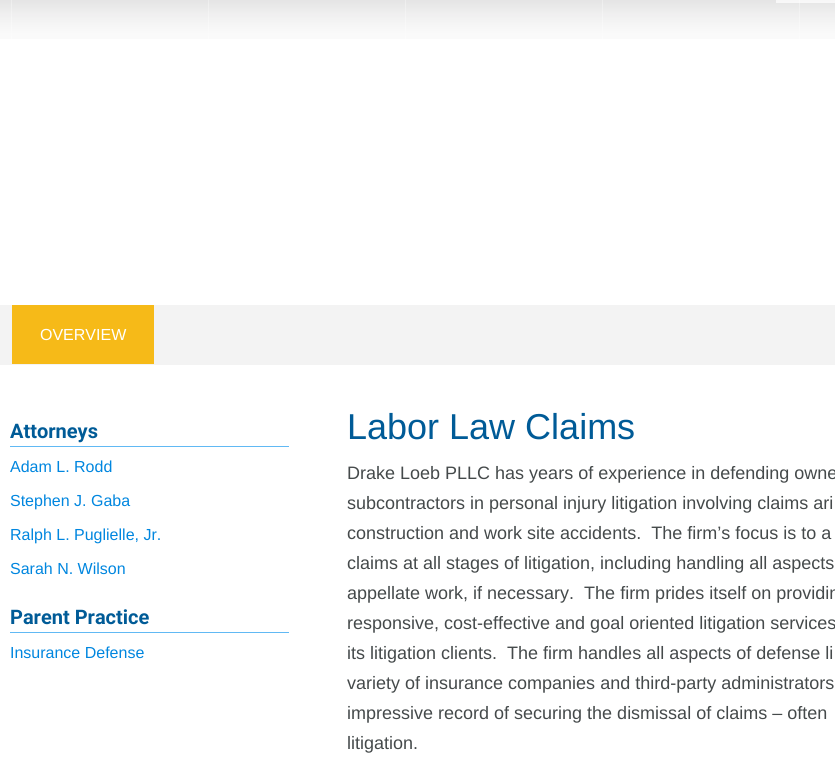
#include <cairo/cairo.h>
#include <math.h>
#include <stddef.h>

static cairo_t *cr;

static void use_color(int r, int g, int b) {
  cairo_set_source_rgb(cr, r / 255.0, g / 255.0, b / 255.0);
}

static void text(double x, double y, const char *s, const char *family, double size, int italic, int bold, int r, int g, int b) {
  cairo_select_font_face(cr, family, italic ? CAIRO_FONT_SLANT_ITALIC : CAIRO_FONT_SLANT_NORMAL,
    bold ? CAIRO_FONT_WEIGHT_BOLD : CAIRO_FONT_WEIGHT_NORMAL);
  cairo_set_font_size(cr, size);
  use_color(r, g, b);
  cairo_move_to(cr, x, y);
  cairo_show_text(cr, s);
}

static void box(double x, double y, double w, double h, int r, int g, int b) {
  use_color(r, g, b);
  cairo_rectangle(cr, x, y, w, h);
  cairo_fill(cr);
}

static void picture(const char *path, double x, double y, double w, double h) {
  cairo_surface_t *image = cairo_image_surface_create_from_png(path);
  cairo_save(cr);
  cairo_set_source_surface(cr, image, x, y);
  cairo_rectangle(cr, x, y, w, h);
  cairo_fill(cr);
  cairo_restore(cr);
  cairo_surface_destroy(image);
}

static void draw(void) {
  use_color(255, 255, 255);
  cairo_paint(cr);
  picture("img_01.png", 0, 0, 835, 39);
  cairo_set_source_rgba(cr, 1, 1, 1, 0.7);
  cairo_rectangle(cr, 776, 0, 59, 3);
  cairo_fill(cr);
  box(0, 305, 835, 60, 243, 243, 243);
  box(12, 305, 142, 59, 246, 186, 24);
  box(10, 446, 279, 1, 97, 185, 244);
  box(10, 632, 279, 1, 97, 185, 244);
  text(40, 340, "OVERVIEW", "Liberation Sans", 16, 0, 0, 255, 255, 255);
  text(10, 438, "Attorneys", "Roboto", 20, 0, 1, 0, 91, 151);
  text(10, 472, "Adam L. Rodd", "Liberation Sans", 16, 0, 0, 0, 134, 223);
  text(10, 506, "Stephen J. Gaba", "Liberation Sans", 16, 0, 0, 0, 134, 223);
  text(10, 540, "Ralph L. Puglielle, Jr.", "Liberation Sans", 16, 0, 0, 0, 134, 223);
  text(10, 574, "Sarah N. Wilson", "Liberation Sans", 16, 0, 0, 0, 134, 223);
  text(10, 624, "Parent Practice", "Roboto", 20, 0, 1, 0, 91, 151);
  text(10, 658, "Insurance Defense", "Liberation Sans", 16, 0, 0, 0, 134, 223);
  text(347, 439, "Labor Law Claims", "Liberation Sans", 36, 0, 0, 0, 91, 151);
  text(347, 479, "Drake Loeb PLLC has years of experience in defending owne", "Liberation Sans", 18, 0, 0, 69, 74, 75);
  text(347, 509, "subcontractors in personal injury litigation involving claims ari", "Liberation Sans", 18, 0, 0, 69, 74, 75);
  text(347, 539, "construction and work site accidents.  The firm’s focus is to a", "Liberation Sans", 18, 0, 0, 69, 74, 75);
  text(347, 569, "claims at all stages of litigation, including handling all aspects", "Liberation Sans", 18, 0, 0, 69, 74, 75);
  text(347, 599, "appellate work, if necessary.  The firm prides itself on providin", "Liberation Sans", 18, 0, 0, 69, 74, 75);
  text(347, 629, "responsive, cost-effective and goal oriented litigation services", "Liberation Sans", 18, 0, 0, 69, 74, 75);
  text(347, 659, "its litigation clients.  The firm handles all aspects of defense li", "Liberation Sans", 18, 0, 0, 69, 74, 75);
  text(347, 689, "variety of insurance companies and third-party administrators", "Liberation Sans", 18, 0, 0, 69, 74, 75);
  text(347, 719, "impressive record of securing the dismissal of claims – often", "Liberation Sans", 18, 0, 0, 69, 74, 75);
  text(347, 749, "litigation.", "Liberation Sans", 18, 0, 0, 69, 74, 75);
}

int main(void) {
  cairo_surface_t *surface = cairo_image_surface_create(CAIRO_FORMAT_RGB24, 835, 768);
  cr = cairo_create(surface);
  cairo_font_options_t *options = cairo_font_options_create();
  cairo_font_options_set_hint_metrics(options, CAIRO_HINT_METRICS_OFF);
  cairo_font_options_set_hint_style(options, CAIRO_HINT_STYLE_NONE);
  cairo_set_font_options(cr, options);
  cairo_set_miter_limit(cr, 4);
  draw();
  cairo_surface_write_to_png(surface, "out.png");
  cairo_font_options_destroy(options);
  cairo_destroy(cr);
  cairo_surface_destroy(surface);
  return 0;
}
